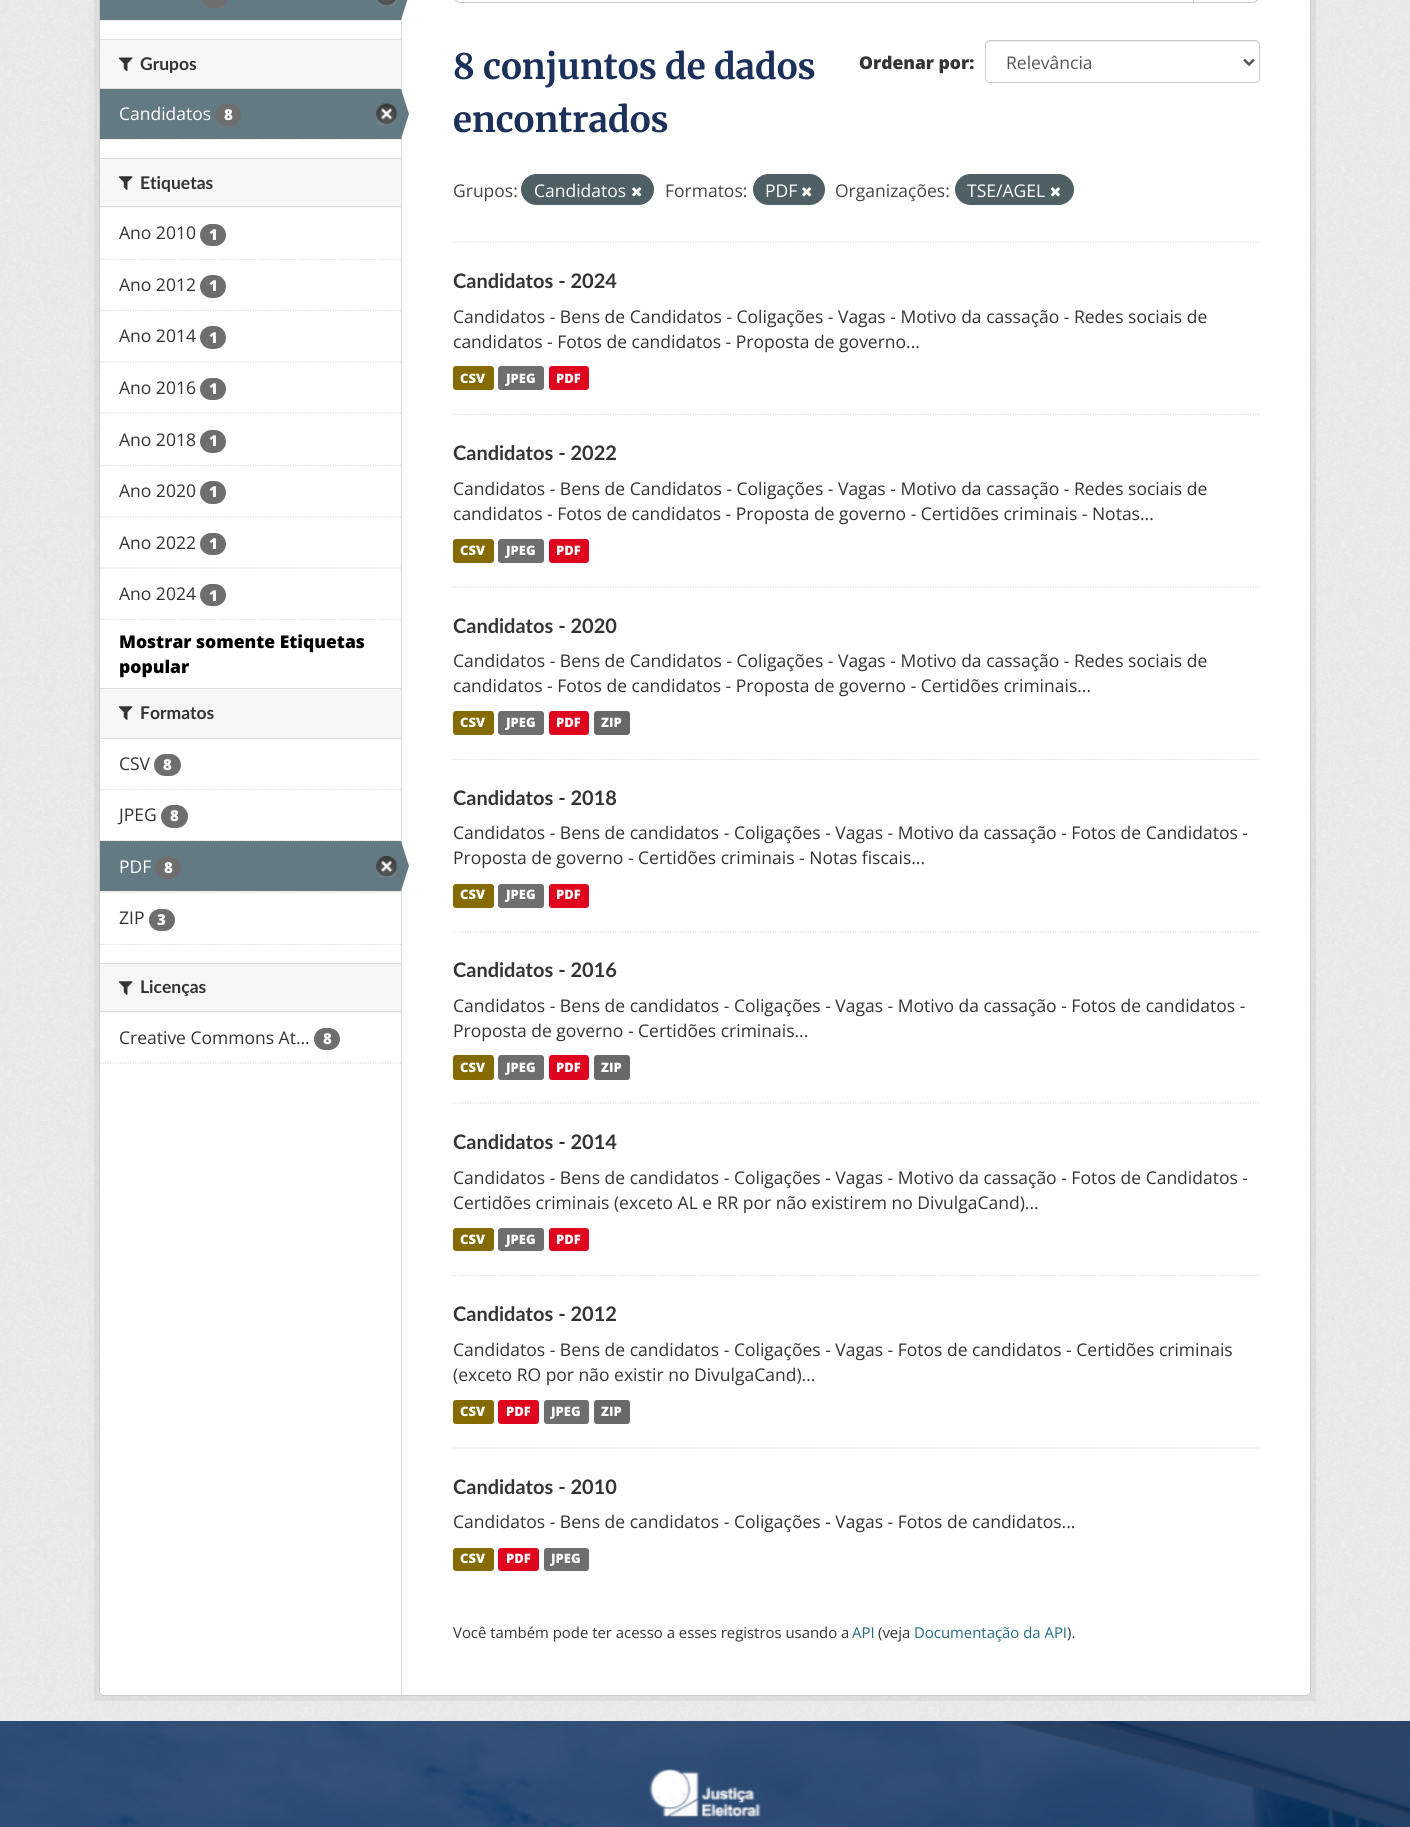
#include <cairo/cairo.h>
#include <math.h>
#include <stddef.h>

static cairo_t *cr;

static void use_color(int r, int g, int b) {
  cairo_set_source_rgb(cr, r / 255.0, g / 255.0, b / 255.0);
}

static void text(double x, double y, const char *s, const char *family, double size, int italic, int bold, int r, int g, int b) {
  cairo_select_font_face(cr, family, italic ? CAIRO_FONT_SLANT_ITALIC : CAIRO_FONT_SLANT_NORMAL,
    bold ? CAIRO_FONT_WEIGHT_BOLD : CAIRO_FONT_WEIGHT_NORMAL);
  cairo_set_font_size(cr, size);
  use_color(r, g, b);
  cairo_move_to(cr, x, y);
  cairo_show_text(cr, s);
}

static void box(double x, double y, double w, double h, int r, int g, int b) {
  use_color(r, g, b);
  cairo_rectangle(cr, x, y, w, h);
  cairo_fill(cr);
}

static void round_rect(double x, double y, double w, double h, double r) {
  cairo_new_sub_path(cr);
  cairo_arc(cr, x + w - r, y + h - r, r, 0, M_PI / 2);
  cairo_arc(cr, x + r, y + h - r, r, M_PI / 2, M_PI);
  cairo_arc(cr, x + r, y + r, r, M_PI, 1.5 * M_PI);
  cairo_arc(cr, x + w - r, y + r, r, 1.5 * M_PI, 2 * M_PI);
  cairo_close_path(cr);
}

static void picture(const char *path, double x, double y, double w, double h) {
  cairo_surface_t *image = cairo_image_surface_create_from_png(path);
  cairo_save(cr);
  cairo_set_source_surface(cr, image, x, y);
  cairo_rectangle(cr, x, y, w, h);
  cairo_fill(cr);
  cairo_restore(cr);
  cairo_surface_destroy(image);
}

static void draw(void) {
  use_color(255, 255, 255);
  cairo_paint(cr);
  box(0, 0, 1410, 1721, 238, 238, 238);
  picture("img_01.png", 0, 0, 1410, 1721);
  cairo_rectangle(cr, 96.5, -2.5, 1217, 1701);
  cairo_set_source_rgba(cr, 0, 0, 0, 0.05);
  cairo_set_line_width(cr, 5);
  cairo_stroke(cr);
  use_color(255, 255, 255);
  round_rect(99.5, -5.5, 1211, 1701, 4.5);
  cairo_fill_preserve(cr);
  use_color(204, 204, 204);
  cairo_set_line_width(cr, 1);
  cairo_stroke(cr);
  cairo_new_path(cr);
  cairo_move_to(cr, 100, 20.5);
  cairo_line_to(cr, 401, 20.5);
  use_color(221, 221, 221);
  cairo_set_line_width(cr, 1.2);
  cairo_set_dash(cr, (double[]){1.25, 1.25}, 2, 0);
  cairo_stroke(cr);
  box(100, 0, 301, 20, 100, 122, 130);
  use_color(110, 110, 110);
  round_rect(201, -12, 27, 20, 11.5);
  cairo_fill(cr);
  picture("img_02.png", 376, 0, 21, 6);
  box(401, 17, 1, 1678, 221, 221, 221);
  use_color(100, 122, 130);
  cairo_new_path(cr);
  cairo_move_to(cr, 401, 20);
  cairo_line_to(cr, 401, -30);
  cairo_line_to(cr, 409, -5);
  cairo_close_path(cr);
  cairo_fill(cr);
  box(100, 40, 301, 48, 246, 246, 246);
  box(100, 39, 301, 1, 221, 221, 221);
  box(100, 88, 301, 1, 221, 221, 221);
  picture("img_03.png", 118, 57, 15, 15);
  cairo_new_path(cr);
  cairo_move_to(cr, 100, 139.5);
  cairo_line_to(cr, 401, 139.5);
  cairo_stroke(cr);
  box(100, 89, 301, 50, 100, 122, 130);
  use_color(110, 110, 110);
  round_rect(215, 104, 26, 22, 11);
  cairo_fill(cr);
  picture("img_04.png", 376, 103, 22, 22);
  use_color(100, 122, 130);
  cairo_new_path(cr);
  cairo_move_to(cr, 401, 139);
  cairo_line_to(cr, 401, 89);
  cairo_line_to(cr, 409, 114);
  cairo_close_path(cr);
  cairo_fill(cr);
  box(100, 159, 301, 49, 246, 246, 246);
  box(100, 158, 301, 1, 221, 221, 221);
  box(100, 206, 301, 1, 221, 221, 221);
  picture("img_05.png", 118, 176, 15, 14);
  cairo_new_path(cr);
  cairo_move_to(cr, 100, 259.5);
  cairo_line_to(cr, 401, 259.5);
  cairo_stroke(cr);
  use_color(110, 110, 110);
  round_rect(200, 224, 26, 22, 11);
  cairo_fill(cr);
  cairo_new_path(cr);
  cairo_move_to(cr, 100, 310.5);
  cairo_line_to(cr, 401, 310.5);
  use_color(221, 221, 221);
  cairo_stroke(cr);
  use_color(110, 110, 110);
  round_rect(200, 275, 26, 23, 11.5);
  cairo_fill(cr);
  cairo_new_path(cr);
  cairo_move_to(cr, 100, 362);
  cairo_line_to(cr, 401, 362);
  use_color(221, 221, 221);
  cairo_stroke(cr);
  use_color(110, 110, 110);
  round_rect(200, 326, 26, 23, 11.5);
  cairo_fill(cr);
  cairo_new_path(cr);
  cairo_move_to(cr, 100, 413);
  cairo_line_to(cr, 401, 413);
  use_color(221, 221, 221);
  cairo_stroke(cr);
  use_color(110, 110, 110);
  round_rect(200, 378, 26, 22, 11);
  cairo_fill(cr);
  cairo_new_path(cr);
  cairo_move_to(cr, 100, 465.5);
  cairo_line_to(cr, 401, 465.5);
  use_color(221, 221, 221);
  cairo_stroke(cr);
  use_color(110, 110, 110);
  round_rect(200, 430, 26, 23, 11.5);
  cairo_fill(cr);
  cairo_new_path(cr);
  cairo_move_to(cr, 100, 517);
  cairo_line_to(cr, 401, 517);
  use_color(221, 221, 221);
  cairo_stroke(cr);
  use_color(110, 110, 110);
  round_rect(200, 481, 26, 23, 11.5);
  cairo_fill(cr);
  cairo_new_path(cr);
  cairo_move_to(cr, 100, 568);
  cairo_line_to(cr, 401, 568);
  use_color(221, 221, 221);
  cairo_stroke(cr);
  use_color(110, 110, 110);
  round_rect(200, 533, 26, 22, 11);
  cairo_fill(cr);
  round_rect(200, 584, 26, 22, 11);
  cairo_fill(cr);
  cairo_new_path(cr);
  cairo_move_to(cr, 100, 619.5);
  cairo_line_to(cr, 401, 619.5);
  use_color(221, 221, 221);
  cairo_stroke(cr);
  box(100, 689, 301, 49, 246, 246, 246);
  box(100, 688, 301, 1, 221, 221, 221);
  box(100, 738, 301, 1, 221, 221, 221);
  picture("img_05.png", 118, 706, 15, 14);
  cairo_new_path(cr);
  cairo_move_to(cr, 100, 789.5);
  cairo_line_to(cr, 401, 789.5);
  cairo_stroke(cr);
  use_color(110, 110, 110);
  round_rect(154, 754, 27, 22, 11);
  cairo_fill(cr);
  cairo_new_path(cr);
  cairo_move_to(cr, 100, 840.5);
  cairo_line_to(cr, 401, 840.5);
  use_color(221, 221, 221);
  cairo_stroke(cr);
  use_color(110, 110, 110);
  round_rect(161, 805, 27, 23, 11.5);
  cairo_fill(cr);
  box(100, 891, 301, 2, 246, 246, 246);
  cairo_new_path(cr);
  cairo_move_to(cr, 100, 892);
  cairo_line_to(cr, 401, 892);
  use_color(221, 221, 221);
  cairo_stroke(cr);
  box(100, 841, 301, 50, 100, 122, 130);
  use_color(110, 110, 110);
  round_rect(155, 856, 26, 23, 11.5);
  cairo_fill(cr);
  picture("img_06.png", 376, 856, 22, 22);
  use_color(100, 122, 130);
  cairo_new_path(cr);
  cairo_move_to(cr, 401, 891);
  cairo_line_to(cr, 401, 841);
  cairo_line_to(cr, 409, 866);
  cairo_close_path(cr);
  cairo_fill(cr);
  use_color(110, 110, 110);
  round_rect(149, 909, 26, 22, 11);
  cairo_fill(cr);
  cairo_new_path(cr);
  cairo_move_to(cr, 100, 944.5);
  cairo_line_to(cr, 401, 944.5);
  use_color(221, 221, 221);
  cairo_stroke(cr);
  box(100, 964, 301, 49, 246, 246, 246);
  box(100, 963, 301, 1, 221, 221, 221);
  box(100, 1011, 301, 1, 221, 221, 221);
  picture("img_05.png", 118, 981, 15, 14);
  use_color(110, 110, 110);
  round_rect(314, 1028, 26, 22, 11);
  cairo_fill(cr);
  cairo_new_path(cr);
  cairo_move_to(cr, 100, 1063);
  cairo_line_to(cr, 401, 1063);
  use_color(221, 221, 221);
  cairo_stroke(cr);
  cairo_new_path(cr);
  cairo_move_to(cr, 452.5, 242);
  cairo_line_to(cr, 1260, 242);
  cairo_stroke(cr);
  use_color(236, 236, 236);
  cairo_new_path(cr);
  cairo_move_to(cr, 460, -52);
  cairo_line_to(cr, 1192, -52);
  cairo_line_to(cr, 1192, 1);
  cairo_line_to(cr, 1193, 1);
  cairo_line_to(cr, 1193, -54);
  cairo_line_to(cr, 460, -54);
  cairo_curve_to(cr, 457, -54, 454, -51, 454, -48);
  cairo_line_to(cr, 454, -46);
  cairo_curve_to(cr, 454, -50, 457, -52, 460, -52);
  cairo_close_path(cr);
  cairo_fill(cr);
  cairo_new_path(cr);
  cairo_move_to(cr, 461, -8.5);
  cairo_line_to(cr, 1193.5, -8.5);
  cairo_line_to(cr, 1193.5, 2.5);
  cairo_line_to(cr, 461, 2.5);
  cairo_curve_to(cr, 457, 2.5, 453.5, -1, 453.5, -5);
  cairo_line_to(cr, 453.5, -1);
  cairo_curve_to(cr, 453.5, -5, 457, -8.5, 461, -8.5);
  cairo_close_path(cr);
  use_color(204, 204, 204);
  cairo_set_line_width(cr, 1);
  cairo_set_dash(cr, NULL, 0, 0);
  cairo_stroke(cr);
  use_color(255, 255, 255);
  cairo_new_path(cr);
  cairo_move_to(cr, 1193.5, -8.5);
  cairo_line_to(cr, 1252, -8.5);
  cairo_curve_to(cr, 1256, -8.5, 1259.5, -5, 1259.5, -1);
  cairo_line_to(cr, 1259.5, -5);
  cairo_curve_to(cr, 1259.5, -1, 1256, 2.5, 1252, 2.5);
  cairo_line_to(cr, 1193.5, 2.5);
  cairo_close_path(cr);
  cairo_fill_preserve(cr);
  use_color(204, 204, 204);
  cairo_stroke(cr);
  use_color(236, 236, 236);
  cairo_new_path(cr);
  cairo_move_to(cr, 990, 42);
  cairo_line_to(cr, 1255, 42);
  cairo_curve_to(cr, 1257, 42, 1259, 44, 1259, 46);
  cairo_curve_to(cr, 1259, 43, 1258, 41, 1255, 41);
  cairo_line_to(cr, 990, 41);
  cairo_curve_to(cr, 987, 41, 986, 43, 986, 46);
  cairo_curve_to(cr, 986, 44, 988, 42, 990, 42);
  cairo_close_path(cr);
  cairo_fill(cr);
  round_rect(985.5, 40.5, 274, 42, 4.5);
  use_color(204, 204, 204);
  cairo_stroke(cr);
  cairo_new_path(cr);
  cairo_move_to(cr, 1244, 59.5);
  cairo_line_to(cr, 1249, 64.5);
  cairo_line_to(cr, 1254, 59.5);
  use_color(85, 85, 85);
  cairo_set_line_width(cr, 2.5);
  cairo_stroke(cr);
  use_color(78, 95, 101);
  round_rect(521, 174, 133, 31, 15.5);
  cairo_fill(cr);
  picture("img_07.png", 632, 187, 10, 10);
  round_rect(753, 174, 72, 31, 15.5);
  cairo_fill(cr);
  picture("img_07.png", 802, 187, 10, 10);
  round_rect(955, 174, 119, 31, 15.5);
  cairo_fill(cr);
  picture("img_08.png", 1050, 187, 10, 10);
  cairo_new_path(cr);
  cairo_move_to(cr, 452.5, 414.5);
  cairo_line_to(cr, 1260, 414.5);
  use_color(221, 221, 221);
  cairo_set_line_width(cr, 1.2);
  cairo_set_dash(cr, (double[]){1.25, 1.25}, 2, 0);
  cairo_stroke(cr);
  use_color(133, 106, 0);
  round_rect(453, 366, 41, 24, 3);
  cairo_fill(cr);
  use_color(110, 110, 110);
  round_rect(498, 366, 46, 24, 3);
  cairo_fill(cr);
  use_color(224, 5, 30);
  round_rect(549, 366, 40, 24, 3);
  cairo_fill(cr);
  cairo_new_path(cr);
  cairo_move_to(cr, 452.5, 587);
  cairo_line_to(cr, 1260, 587);
  use_color(221, 221, 221);
  cairo_stroke(cr);
  use_color(133, 106, 0);
  round_rect(453, 539, 41, 24, 3);
  cairo_fill(cr);
  use_color(110, 110, 110);
  round_rect(498, 539, 46, 24, 3);
  cairo_fill(cr);
  use_color(224, 5, 30);
  round_rect(549, 539, 40, 24, 3);
  cairo_fill(cr);
  cairo_new_path(cr);
  cairo_move_to(cr, 452.5, 759.5);
  cairo_line_to(cr, 1260, 759.5);
  use_color(221, 221, 221);
  cairo_stroke(cr);
  use_color(133, 106, 0);
  round_rect(453, 711, 41, 24, 3);
  cairo_fill(cr);
  use_color(110, 110, 110);
  round_rect(498, 711, 46, 24, 3);
  cairo_fill(cr);
  use_color(224, 5, 30);
  round_rect(549, 711, 40, 24, 3);
  cairo_fill(cr);
  use_color(104, 104, 104);
  round_rect(594, 711, 36, 24, 3);
  cairo_fill(cr);
  cairo_new_path(cr);
  cairo_move_to(cr, 452.5, 932);
  cairo_line_to(cr, 1260, 932);
  use_color(221, 221, 221);
  cairo_stroke(cr);
  use_color(133, 106, 0);
  round_rect(453, 884, 41, 24, 3);
  cairo_fill(cr);
  use_color(110, 110, 110);
  round_rect(498, 884, 46, 24, 3);
  cairo_fill(cr);
  use_color(224, 5, 30);
  round_rect(549, 884, 40, 24, 3);
  cairo_fill(cr);
  cairo_new_path(cr);
  cairo_move_to(cr, 452.5, 1103);
  cairo_line_to(cr, 1260, 1103);
  use_color(221, 221, 221);
  cairo_stroke(cr);
  use_color(133, 106, 0);
  round_rect(453, 1055, 41, 25, 3);
  cairo_fill(cr);
  use_color(110, 110, 110);
  round_rect(498, 1055, 46, 25, 3);
  cairo_fill(cr);
  use_color(224, 5, 30);
  round_rect(549, 1055, 40, 25, 3);
  cairo_fill(cr);
  use_color(104, 104, 104);
  round_rect(594, 1055, 36, 25, 3);
  cairo_fill(cr);
  cairo_new_path(cr);
  cairo_move_to(cr, 452.5, 1275.5);
  cairo_line_to(cr, 1260, 1275.5);
  use_color(221, 221, 221);
  cairo_stroke(cr);
  use_color(133, 106, 0);
  round_rect(453, 1228, 41, 23, 3);
  cairo_fill(cr);
  use_color(110, 110, 110);
  round_rect(498, 1228, 46, 23, 3);
  cairo_fill(cr);
  use_color(224, 5, 30);
  round_rect(549, 1228, 40, 23, 3);
  cairo_fill(cr);
  cairo_new_path(cr);
  cairo_move_to(cr, 452.5, 1448);
  cairo_line_to(cr, 1260, 1448);
  use_color(221, 221, 221);
  cairo_stroke(cr);
  use_color(133, 106, 0);
  round_rect(453, 1400, 41, 24, 3);
  cairo_fill(cr);
  use_color(224, 5, 30);
  round_rect(498, 1400, 41, 24, 3);
  cairo_fill(cr);
  use_color(110, 110, 110);
  round_rect(544, 1400, 45, 24, 3);
  cairo_fill(cr);
  use_color(104, 104, 104);
  round_rect(594, 1400, 36, 24, 3);
  cairo_fill(cr);
  use_color(133, 106, 0);
  round_rect(453, 1548, 41, 23, 3);
  cairo_fill(cr);
  use_color(224, 5, 30);
  round_rect(498, 1548, 41, 23, 3);
  cairo_fill(cr);
  use_color(110, 110, 110);
  round_rect(544, 1548, 45, 23, 3);
  cairo_fill(cr);
  picture("img_09.png", 0, 1721, 1410, 106);
  text(140, 70, "Grupos", "Lato", 17.5, 0, 1, 51, 51, 51);
  text(119, 120, "Candidatos", "Open Sans", 17.5, 0, 0, 255, 255, 255);
  text(224, 120, "8", "Open Sans ExtraBold", 15, 0, 0, 255, 255, 255);
  text(140, 189, "Etiquetas", "Lato", 17.5, 0, 1, 51, 51, 51);
  text(119, 239, "Ano 2010", "Open Sans", 17.5, 0, 0, 51, 51, 51);
  text(209, 240, "1", "Open Sans ExtraBold", 15, 0, 0, 255, 255, 255);
  text(119, 291, "Ano 2012", "Open Sans", 17.5, 0, 0, 51, 51, 51);
  text(209, 291, "1", "Open Sans ExtraBold", 15, 0, 0, 255, 255, 255);
  text(119, 342, "Ano 2014", "Open Sans", 17.5, 0, 0, 51, 51, 51);
  text(209, 343, "1", "Open Sans ExtraBold", 15, 0, 0, 255, 255, 255);
  text(119, 394, "Ano 2016", "Open Sans", 17.5, 0, 0, 51, 51, 51);
  text(209, 394, "1", "Open Sans ExtraBold", 15, 0, 0, 255, 255, 255);
  text(119, 446, "Ano 2018", "Open Sans", 17.5, 0, 0, 51, 51, 51);
  text(209, 446, "1", "Open Sans ExtraBold", 15, 0, 0, 255, 255, 255);
  text(119, 497, "Ano 2020", "Open Sans", 17.5, 0, 0, 51, 51, 51);
  text(209, 497, "1", "Open Sans ExtraBold", 15, 0, 0, 255, 255, 255);
  text(119, 549, "Ano 2022", "Open Sans", 17.5, 0, 0, 51, 51, 51);
  text(209, 549, "1", "Open Sans ExtraBold", 15, 0, 0, 255, 255, 255);
  text(119, 600, "Ano 2024", "Open Sans", 17.5, 0, 0, 51, 51, 51);
  text(209, 601, "1", "Open Sans ExtraBold", 15, 0, 0, 255, 255, 255);
  text(119, 648, "Mostrar somente Etiquetas", "Open Sans ExtraBold", 17.5, 0, 0, 0, 0, 0);
  text(119, 673, "popular", "Open Sans ExtraBold", 17.5, 0, 0, 0, 0, 0);
  text(140, 719, "Formatos", "Lato", 17.5, 0, 1, 51, 51, 51);
  text(119, 770, "CSV", "Open Sans", 17.5, 0, 0, 51, 51, 51);
  text(163, 770, "8", "Open Sans ExtraBold", 15, 0, 0, 255, 255, 255);
  text(119, 821, "JPEG", "Open Sans", 17.5, 0, 0, 51, 51, 51);
  text(170, 821, "8", "Open Sans ExtraBold", 15, 0, 0, 255, 255, 255);
  text(119, 873, "PDF", "Open Sans", 17.5, 0, 0, 255, 255, 255);
  text(164, 873, "8", "Open Sans ExtraBold", 15, 0, 0, 255, 255, 255);
  text(119, 924, "ZIP", "Open Sans", 17.5, 0, 0, 51, 51, 51);
  text(157, 925, "3", "Open Sans ExtraBold", 15, 0, 0, 255, 255, 255);
  text(140, 993, "Licenças", "Lato", 17.5, 0, 1, 51, 51, 51);
  text(119, 1044, "Creative Commons At...", "Open Sans", 17.5, 0, 0, 51, 51, 51);
  text(323, 1044, "8", "Open Sans ExtraBold", 15, 0, 0, 255, 255, 255);
  text(453, 79, "8 conjuntos de dados", "Merriweather", 35, 0, 1, 27, 48, 90);
  text(453, 132, "encontrados", "Merriweather", 35, 0, 1, 27, 48, 90);
  text(859, 69, "Ordenar por:", "Open Sans ExtraBold", 17.5, 0, 0, 51, 51, 51);
  text(1006, 69, "Relevância", "Open Sans", 17.5, 0, 0, 85, 85, 85);
  text(453, 197, "Grupos:", "Open Sans", 17.5, 0, 0, 68, 68, 68);
  text(534, 197, "Candidatos", "Open Sans", 17.5, 0, 0, 255, 255, 255);
  text(665, 197, "Formatos:", "Open Sans", 17.5, 0, 0, 68, 68, 68);
  text(765, 197, "PDF", "Open Sans", 17.5, 0, 0, 255, 255, 255);
  text(835, 197, "Organizações:", "Open Sans", 17.5, 0, 0, 68, 68, 68);
  text(967, 197, "TSE/AGEL", "Open Sans", 17.5, 0, 0, 255, 255, 255);
  text(453, 288, "Candidatos - 2024", "Lato", 20, 0, 1, 51, 51, 51);
  text(453, 323, "Candidatos - Bens de Candidatos - Coligações - Vagas - Motivo da cassação - Redes sociais de", "Open Sans", 17.5, 0, 0, 51, 51, 51);
  text(453, 348, "candidatos - Fotos de candidatos - Proposta de governo...", "Open Sans", 17.5, 0, 0, 51, 51, 51);
  text(460, 383, "CSV", "Open Sans ExtraBold", 13, 0, 0, 255, 255, 255);
  text(506, 383, "JPEG", "Open Sans ExtraBold", 13, 0, 0, 255, 255, 255);
  text(556, 383, "PDF", "Open Sans ExtraBold", 13, 0, 0, 255, 255, 255);
  text(453, 460, "Candidatos - 2022", "Lato", 20, 0, 1, 51, 51, 51);
  text(453, 495, "Candidatos - Bens de Candidatos - Coligações - Vagas - Motivo da cassação - Redes sociais de", "Open Sans", 17.5, 0, 0, 51, 51, 51);
  text(453, 520, "candidatos - Fotos de candidatos - Proposta de governo - Certidões criminais - Notas...", "Open Sans", 17.5, 0, 0, 51, 51, 51);
  text(460, 555, "CSV", "Open Sans ExtraBold", 13, 0, 0, 255, 255, 255);
  text(506, 555, "JPEG", "Open Sans ExtraBold", 13, 0, 0, 255, 255, 255);
  text(556, 555, "PDF", "Open Sans ExtraBold", 13, 0, 0, 255, 255, 255);
  text(453, 633, "Candidatos - 2020", "Lato", 20, 0, 1, 51, 51, 51);
  text(453, 667, "Candidatos - Bens de Candidatos - Coligações - Vagas - Motivo da cassação - Redes sociais de", "Open Sans", 17.5, 0, 0, 51, 51, 51);
  text(453, 692, "candidatos - Fotos de candidatos - Proposta de governo - Certidões criminais...", "Open Sans", 17.5, 0, 0, 51, 51, 51);
  text(460, 727, "CSV", "Open Sans ExtraBold", 13, 0, 0, 255, 255, 255);
  text(506, 727, "JPEG", "Open Sans ExtraBold", 13, 0, 0, 255, 255, 255);
  text(556, 727, "PDF", "Open Sans ExtraBold", 13, 0, 0, 255, 255, 255);
  text(601, 727, "ZIP", "Open Sans ExtraBold", 13, 0, 0, 255, 255, 255);
  text(453, 805, "Candidatos - 2018", "Lato", 20, 0, 1, 51, 51, 51);
  text(453, 839, "Candidatos - Bens de candidatos - Coligações - Vagas - Motivo da cassação - Fotos de Candidatos -", "Open Sans", 17.5, 0, 0, 51, 51, 51);
  text(453, 864, "Proposta de governo - Certidões criminais - Notas fiscais...", "Open Sans", 17.5, 0, 0, 51, 51, 51);
  text(460, 899, "CSV", "Open Sans ExtraBold", 13, 0, 0, 255, 255, 255);
  text(506, 899, "JPEG", "Open Sans ExtraBold", 13, 0, 0, 255, 255, 255);
  text(556, 899, "PDF", "Open Sans ExtraBold", 13, 0, 0, 255, 255, 255);
  text(453, 977, "Candidatos - 2016", "Lato", 20, 0, 1, 51, 51, 51);
  text(453, 1012, "Candidatos - Bens de candidatos - Coligações - Vagas - Motivo da cassação - Fotos de candidatos -", "Open Sans", 17.5, 0, 0, 51, 51, 51);
  text(453, 1037, "Proposta de governo - Certidões criminais...", "Open Sans", 17.5, 0, 0, 51, 51, 51);
  text(460, 1072, "CSV", "Open Sans ExtraBold", 13, 0, 0, 255, 255, 255);
  text(506, 1072, "JPEG", "Open Sans ExtraBold", 13, 0, 0, 255, 255, 255);
  text(556, 1072, "PDF", "Open Sans ExtraBold", 13, 0, 0, 255, 255, 255);
  text(601, 1072, "ZIP", "Open Sans ExtraBold", 13, 0, 0, 255, 255, 255);
  text(453, 1149, "Candidatos - 2014", "Lato", 20, 0, 1, 51, 51, 51);
  text(453, 1184, "Candidatos - Bens de candidatos - Coligações - Vagas - Motivo da cassação - Fotos de Candidatos -", "Open Sans", 17.5, 0, 0, 51, 51, 51);
  text(453, 1209, "Certidões criminais (exceto AL e RR por não existirem no DivulgaCand)...", "Open Sans", 17.5, 0, 0, 51, 51, 51);
  text(460, 1244, "CSV", "Open Sans ExtraBold", 13, 0, 0, 255, 255, 255);
  text(506, 1244, "JPEG", "Open Sans ExtraBold", 13, 0, 0, 255, 255, 255);
  text(556, 1244, "PDF", "Open Sans ExtraBold", 13, 0, 0, 255, 255, 255);
  text(453, 1321, "Candidatos - 2012", "Lato", 20, 0, 1, 51, 51, 51);
  text(453, 1356, "Candidatos - Bens de candidatos - Coligações - Vagas - Fotos de candidatos - Certidões criminais", "Open Sans", 17.5, 0, 0, 51, 51, 51);
  text(453, 1381, "(exceto RO por não existir no DivulgaCand)...", "Open Sans", 17.5, 0, 0, 51, 51, 51);
  text(460, 1416, "CSV", "Open Sans ExtraBold", 13, 0, 0, 255, 255, 255);
  text(506, 1416, "PDF", "Open Sans ExtraBold", 13, 0, 0, 255, 255, 255);
  text(551, 1416, "JPEG", "Open Sans ExtraBold", 13, 0, 0, 255, 255, 255);
  text(601, 1416, "ZIP", "Open Sans ExtraBold", 13, 0, 0, 255, 255, 255);
  text(453, 1494, "Candidatos - 2010", "Lato", 20, 0, 1, 51, 51, 51);
  text(453, 1528, "Candidatos - Bens de candidatos - Coligações - Vagas - Fotos de candidatos...", "Open Sans", 17.5, 0, 0, 51, 51, 51);
  text(460, 1563, "CSV", "Open Sans ExtraBold", 13, 0, 0, 255, 255, 255);
  text(506, 1563, "PDF", "Open Sans ExtraBold", 13, 0, 0, 255, 255, 255);
  text(551, 1563, "JPEG", "Open Sans ExtraBold", 13, 0, 0, 255, 255, 255);
  text(453, 1638, "Você também pode ter acesso a esses registros usando a", "Open Sans", 14.9, 0, 0, 51, 51, 51);
  text(852, 1638, "API", "Open Sans", 14.9, 0, 0, 32, 107, 130);
  text(878, 1638, "(veja", "Open Sans", 14.9, 0, 0, 51, 51, 51);
  text(914, 1638, "Documentação da API", "Open Sans", 14.9, 0, 0, 32, 107, 130);
  text(1067, 1638, ").", "Open Sans", 14.9, 0, 0, 51, 51, 51);
}

int main(void) {
  cairo_surface_t *surface = cairo_image_surface_create(CAIRO_FORMAT_RGB24, 1410, 1827);
  cr = cairo_create(surface);
  cairo_font_options_t *options = cairo_font_options_create();
  cairo_font_options_set_hint_metrics(options, CAIRO_HINT_METRICS_OFF);
  cairo_font_options_set_hint_style(options, CAIRO_HINT_STYLE_NONE);
  cairo_set_font_options(cr, options);
  cairo_set_miter_limit(cr, 4);
  draw();
  cairo_surface_write_to_png(surface, "out.png");
  cairo_font_options_destroy(options);
  cairo_destroy(cr);
  cairo_surface_destroy(surface);
  return 0;
}
